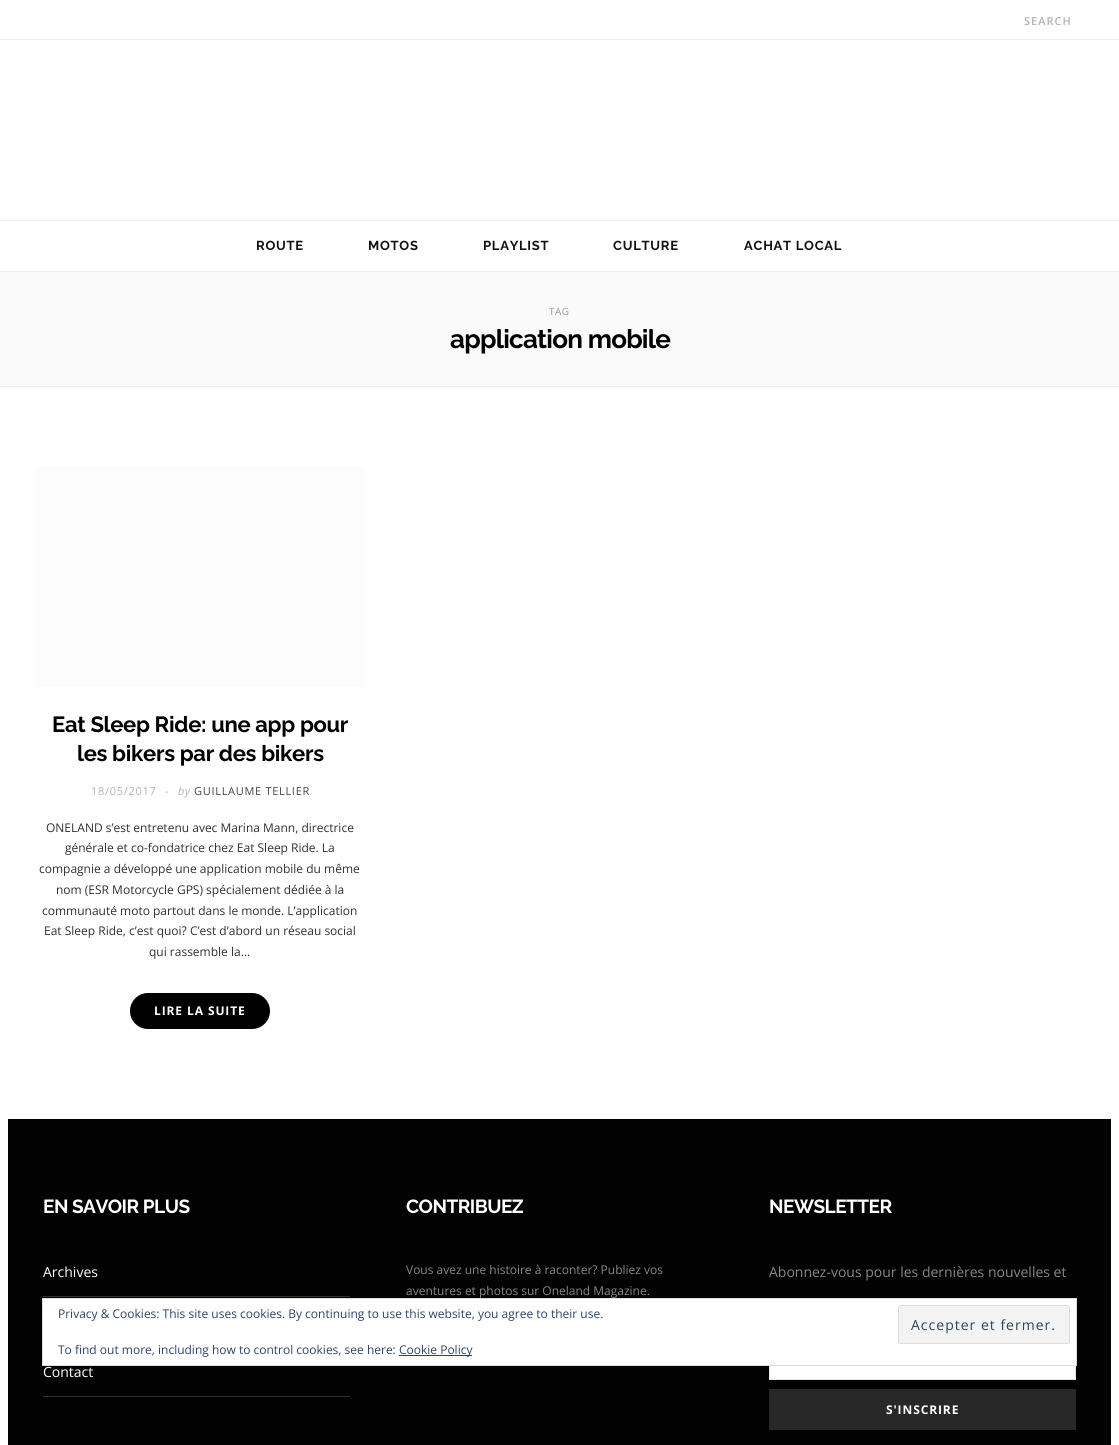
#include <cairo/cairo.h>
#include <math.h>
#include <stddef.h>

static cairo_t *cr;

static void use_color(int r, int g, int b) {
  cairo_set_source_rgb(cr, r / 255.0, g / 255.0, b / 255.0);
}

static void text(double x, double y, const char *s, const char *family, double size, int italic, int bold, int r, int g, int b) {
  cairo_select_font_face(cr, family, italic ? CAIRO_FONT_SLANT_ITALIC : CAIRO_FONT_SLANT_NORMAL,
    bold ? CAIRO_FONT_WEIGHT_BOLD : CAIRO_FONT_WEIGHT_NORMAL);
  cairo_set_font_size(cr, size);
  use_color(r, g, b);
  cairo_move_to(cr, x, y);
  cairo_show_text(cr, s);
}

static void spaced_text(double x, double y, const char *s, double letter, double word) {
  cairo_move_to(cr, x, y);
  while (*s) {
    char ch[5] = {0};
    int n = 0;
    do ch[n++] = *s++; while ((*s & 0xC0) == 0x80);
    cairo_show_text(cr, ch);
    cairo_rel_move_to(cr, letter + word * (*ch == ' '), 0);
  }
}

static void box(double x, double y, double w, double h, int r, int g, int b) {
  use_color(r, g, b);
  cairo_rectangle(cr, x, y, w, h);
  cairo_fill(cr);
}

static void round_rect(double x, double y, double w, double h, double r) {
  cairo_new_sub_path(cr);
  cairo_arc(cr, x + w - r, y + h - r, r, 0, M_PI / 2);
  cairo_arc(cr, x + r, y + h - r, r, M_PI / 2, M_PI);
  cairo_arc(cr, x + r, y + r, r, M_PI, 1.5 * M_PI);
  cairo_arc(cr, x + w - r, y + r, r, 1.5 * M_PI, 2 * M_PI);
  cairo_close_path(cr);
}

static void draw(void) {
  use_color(255, 255, 255);
  cairo_paint(cr);
  box(0, 39, 1119, 1, 239, 239, 239);
  box(0, 220, 1119, 1, 239, 239, 239);
  box(0, 271, 1119, 1, 239, 239, 239);
  box(0, 272, 1119, 114, 250, 250, 250);
  box(0, 386, 1119, 1, 235, 235, 235);
  box(35, 467, 330, 220, 252, 252, 252);
  use_color(0, 0, 0);
  round_rect(130, 993, 140, 36, 18);
  cairo_fill(cr);
  box(8, 1119, 1103, 326, 2, 2, 2);
  box(43, 1296, 307, 1, 50, 50, 50);
  box(43, 1396, 307, 1, 50, 50, 50);
  box(770, 1366, 305, 13, 255, 255, 255);
  cairo_rectangle(cr, 769.5, 1339.5, 306, 40);
  use_color(229, 229, 229);
  cairo_set_line_width(cr, 1);
  cairo_stroke(cr);
  box(769, 1389, 307, 41, 40, 40, 40);
  use_color(255, 255, 255);
  cairo_rectangle(cr, 42.5, 1298.5, 1034, 67);
  cairo_fill_preserve(cr);
  use_color(222, 222, 222);
  cairo_stroke(cr);
  use_color(243, 243, 243);
  round_rect(898.5, 1305.5, 171, 38, 2.5);
  cairo_fill_preserve(cr);
  use_color(222, 222, 222);
  cairo_stroke(cr);
  box(399, 1355, 73, 1, 46, 68, 103);
  cairo_select_font_face(cr, "Open Sans SemiBold", CAIRO_FONT_SLANT_NORMAL, CAIRO_FONT_WEIGHT_NORMAL);
  cairo_set_font_size(cr, 11);
  use_color(180, 180, 180);
  spaced_text(1024, 25, "SEARCH", 1, 0);
  cairo_select_font_face(cr, "Raleway", CAIRO_FONT_SLANT_NORMAL, CAIRO_FONT_WEIGHT_BOLD);
  cairo_set_font_size(cr, 13);
  use_color(17, 17, 17);
  spaced_text(256, 250, "ROUTE", 0.75, 0);
  spaced_text(368, 250, "MOTOS", 0.75, 0);
  spaced_text(483, 250, "PLAYLIST", 0.75, 0);
  spaced_text(613, 250, "CULTURE", 0.75, 0);
  spaced_text(744, 250, "ACHAT LOCAL", 0.75, 0);
  cairo_select_font_face(cr, "Open Sans", CAIRO_FONT_SLANT_NORMAL, CAIRO_FONT_WEIGHT_NORMAL);
  cairo_set_font_size(cr, 10);
  use_color(153, 153, 153);
  spaced_text(549, 315, "TAG", 0.5, 0);
  cairo_select_font_face(cr, "Raleway", CAIRO_FONT_SLANT_NORMAL, CAIRO_FONT_WEIGHT_BOLD);
  cairo_set_font_size(cr, 26);
  use_color(0, 0, 0);
  spaced_text(450, 348, "application mobile", -0.75, 0);
  cairo_set_font_size(cr, 22);
  spaced_text(52, 732, "Eat Sleep Ride: une app pour", -0.3, 0);
  spaced_text(77, 761, "les bikers par des bikers", -0.3, 0);
  cairo_select_font_face(cr, "Open Sans", CAIRO_FONT_SLANT_NORMAL, CAIRO_FONT_WEIGHT_NORMAL);
  cairo_set_font_size(cr, 11);
  use_color(180, 180, 180);
  spaced_text(91, 795, "18/05/2017", 0.7, 0);
  text(165, 795, "-", "Open Sans", 11, 0, 0, 180, 180, 180);
  cairo_select_font_face(cr, "Open Sans", CAIRO_FONT_SLANT_ITALIC, CAIRO_FONT_WEIGHT_NORMAL);
  spaced_text(178, 795, "by", 0.7, 0);
  cairo_select_font_face(cr, "Open Sans", CAIRO_FONT_SLANT_NORMAL, CAIRO_FONT_WEIGHT_NORMAL);
  use_color(69, 69, 69);
  spaced_text(194, 795, "GUILLAUME TELLIER", 0.7, 0);
  text(46, 832, "ONELAND s’est entretenu avec Marina Mann, directrice", "Open Sans", 12, 0, 0, 48, 48, 48);
  text(65, 852, "générale et co-fondatrice chez Eat Sleep Ride. La", "Open Sans", 12, 0, 0, 48, 48, 48);
  text(39, 873, "compagnie a développé une application mobile du même", "Open Sans", 12, 0, 0, 48, 48, 48);
  text(56, 894, "nom (ESR Motorcycle GPS) spécialement dédiée à la", "Open Sans", 12, 0, 0, 48, 48, 48);
  text(42, 915, "communauté moto partout dans le monde. L’application", "Open Sans", 12, 0, 0, 48, 48, 48);
  text(44, 935, "Eat Sleep Ride, c’est quoi? C’est d’abord un réseau social", "Open Sans", 12, 0, 0, 48, 48, 48);
  text(149, 956, "qui rassemble la…", "Open Sans", 12, 0, 0, 48, 48, 48);
  cairo_select_font_face(cr, "Open Sans", CAIRO_FONT_SLANT_NORMAL, CAIRO_FONT_WEIGHT_BOLD);
  use_color(255, 255, 255);
  spaced_text(154, 1015, "LIRE LA SUITE", 0.9, 0);
  cairo_select_font_face(cr, "Raleway", CAIRO_FONT_SLANT_NORMAL, CAIRO_FONT_WEIGHT_BOLD);
  cairo_set_font_size(cr, 19);
  spaced_text(43, 1213, "EN SAVOIR PLUS", -0.5, 0);
  text(43, 1277, "Archives", "Open Sans", 14, 0, 0, 255, 255, 255);
  text(43, 1377, "Contact", "Open Sans", 14, 0, 0, 255, 255, 255);
  cairo_select_font_face(cr, "Raleway", CAIRO_FONT_SLANT_NORMAL, CAIRO_FONT_WEIGHT_BOLD);
  cairo_set_font_size(cr, 19);
  spaced_text(406, 1213, "CONTRIBUEZ", -0.5, 0);
  text(406, 1274, "Vous avez une histoire à raconter? Publiez vos", "Open Sans", 12, 0, 0, 136, 136, 136);
  text(406, 1295, "aventures et photos sur Oneland Magazine.", "Open Sans", 12, 0, 0, 136, 136, 136);
  cairo_select_font_face(cr, "Raleway", CAIRO_FONT_SLANT_NORMAL, CAIRO_FONT_WEIGHT_BOLD);
  cairo_set_font_size(cr, 19);
  use_color(255, 255, 255);
  spaced_text(769, 1213, "NEWSLETTER", -0.5, 0);
  text(769, 1277, "Abonnez-vous pour les dernières nouvelles et", "Open Sans", 14, 0, 0, 136, 136, 136);
  cairo_select_font_face(cr, "Open Sans", CAIRO_FONT_SLANT_NORMAL, CAIRO_FONT_WEIGHT_BOLD);
  cairo_set_font_size(cr, 12);
  use_color(255, 255, 255);
  spaced_text(886, 1414, "S'INSCRIRE", 0.9, 0);
  text(58, 1318, "Privacy & Cookies: This site uses cookies. By continuing to use this website, you agree to their use.", "Open Sans", 12, 0, 0, 46, 68, 103);
  cairo_set_font_size(cr, 14);
  use_color(46, 68, 83);
  spaced_text(911, 1330, "Accepter et fermer.", 1, 0);
  text(58, 1354, "To find out more, including how to control cookies, see here:", "Open Sans", 12, 0, 0, 46, 68, 103);
  text(399, 1354, "Cookie Policy", "Open Sans", 12, 0, 0, 46, 68, 103);
}

int main(void) {
  cairo_surface_t *surface = cairo_image_surface_create(CAIRO_FORMAT_RGB24, 1119, 1445);
  cr = cairo_create(surface);
  cairo_font_options_t *options = cairo_font_options_create();
  cairo_font_options_set_hint_metrics(options, CAIRO_HINT_METRICS_OFF);
  cairo_font_options_set_hint_style(options, CAIRO_HINT_STYLE_NONE);
  cairo_set_font_options(cr, options);
  cairo_set_miter_limit(cr, 4);
  draw();
  cairo_surface_write_to_png(surface, "out.png");
  cairo_font_options_destroy(options);
  cairo_destroy(cr);
  cairo_surface_destroy(surface);
  return 0;
}
